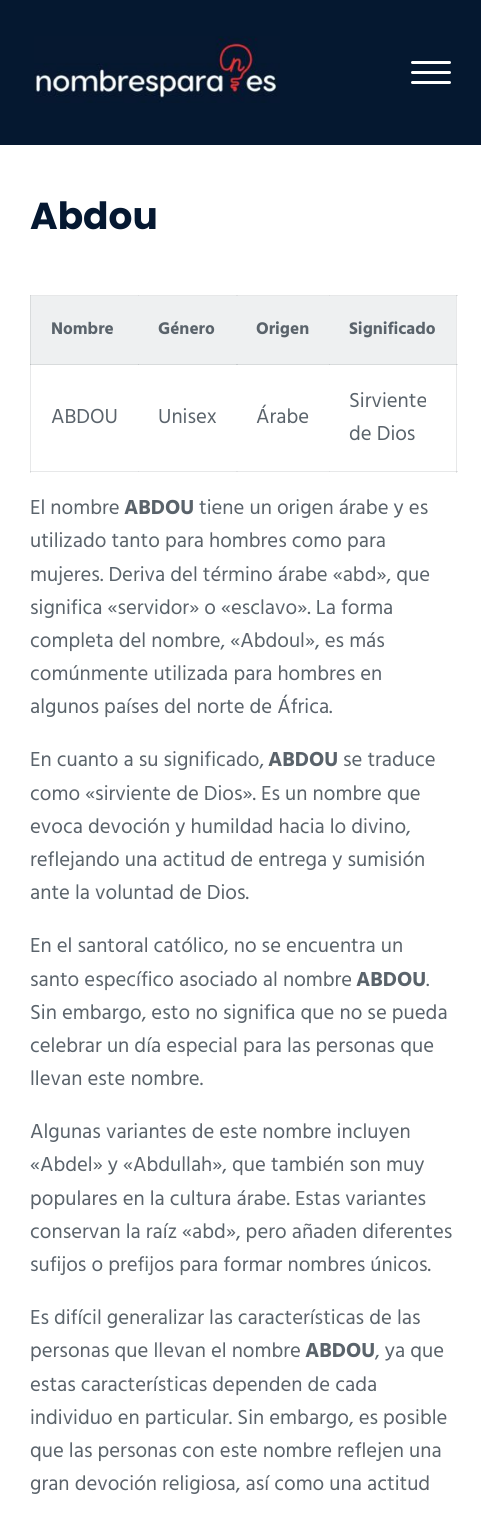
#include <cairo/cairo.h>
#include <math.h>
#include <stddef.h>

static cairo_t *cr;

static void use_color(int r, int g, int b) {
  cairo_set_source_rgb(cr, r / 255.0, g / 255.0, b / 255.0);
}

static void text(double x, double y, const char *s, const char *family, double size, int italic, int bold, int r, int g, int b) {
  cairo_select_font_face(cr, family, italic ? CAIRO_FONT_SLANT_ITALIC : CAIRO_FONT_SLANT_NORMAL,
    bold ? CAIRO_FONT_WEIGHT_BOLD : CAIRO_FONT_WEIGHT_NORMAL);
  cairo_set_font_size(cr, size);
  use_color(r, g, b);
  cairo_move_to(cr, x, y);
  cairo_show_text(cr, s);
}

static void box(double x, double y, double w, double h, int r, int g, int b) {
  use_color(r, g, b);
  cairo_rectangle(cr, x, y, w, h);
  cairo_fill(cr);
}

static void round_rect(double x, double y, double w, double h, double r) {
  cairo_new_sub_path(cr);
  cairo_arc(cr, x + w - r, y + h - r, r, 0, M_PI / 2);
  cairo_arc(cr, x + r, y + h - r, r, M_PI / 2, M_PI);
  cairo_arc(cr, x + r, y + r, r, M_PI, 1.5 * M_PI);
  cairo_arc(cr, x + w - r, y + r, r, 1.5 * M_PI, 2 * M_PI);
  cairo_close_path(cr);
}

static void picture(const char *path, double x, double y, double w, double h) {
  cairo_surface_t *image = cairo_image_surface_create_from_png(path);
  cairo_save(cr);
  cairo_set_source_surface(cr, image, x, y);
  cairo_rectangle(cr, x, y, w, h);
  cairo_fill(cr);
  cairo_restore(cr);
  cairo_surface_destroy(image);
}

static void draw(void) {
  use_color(255, 255, 255);
  cairo_paint(cr);
  box(457, 364, 1, 1, 231, 232, 233);
  box(30, 364, 1, 109, 231, 232, 233);
  box(30, 471, 428, 1, 231, 232, 233);
  box(138, 471, 1, 1, 220, 221, 223);
  box(236, 471, 2, 1, 220, 221, 223);
  box(329, 471, 1, 1, 220, 221, 223);
  box(30, 471, 1, 1, 210, 211, 213);
  box(456, 295, 1, 178, 231, 232, 233);
  box(456, 364, 1, 1, 200, 201, 204);
  box(456, 471, 1, 1, 210, 211, 213);
  box(0, 0, 481, 145, 5, 24, 48);
  picture("img_01.png", 34, 36, 246, 67);
  use_color(255, 255, 255);
  round_rect(411, 71, 40, 3, 1.5);
  cairo_fill(cr);
  round_rect(411, 61, 40, 3, 1.5);
  cairo_fill(cr);
  round_rect(411, 81, 40, 3, 1.5);
  cairo_fill(cr);
  box(30, 295, 428, 1, 231, 232, 233);
  box(138, 295, 1, 1, 220, 221, 223);
  box(236, 295, 2, 1, 220, 221, 223);
  box(329, 295, 1, 1, 220, 221, 223);
  box(30, 295, 1, 1, 210, 211, 213);
  box(456, 295, 1, 1, 210, 211, 213);
  box(31, 296, 425, 68, 238, 240, 241);
  box(30, 364, 426, 1, 216, 219, 220);
  box(30, 296, 1, 69, 216, 219, 220);
  box(30, 364, 1, 1, 187, 191, 193);
  box(138, 364, 1, 1, 196, 200, 202);
  box(236, 364, 2, 1, 196, 200, 202);
  box(329, 364, 1, 1, 196, 200, 202);
  text(30, 229, "Abdou", "Poppins", 37.5, 0, 1, 5, 24, 49);
  text(51, 334, "Nombre", "Hind", 17.25, 0, 1, 90, 99, 107);
  text(158, 334, "Género", "Hind", 17.25, 0, 1, 90, 99, 107);
  text(256, 334, "Origen", "Hind", 17.25, 0, 1, 90, 99, 107);
  text(349, 334, "Significado", "Hind", 17.25, 0, 1, 90, 99, 107);
  text(51, 423, "ABDOU", "Hind", 20.75, 0, 0, 90, 99, 107);
  text(158, 423, "Unisex", "Hind", 20.75, 0, 0, 90, 99, 107);
  text(256, 423, "Árabe", "Hind", 20.75, 0, 0, 90, 99, 107);
  text(349, 407, "Sirviente", "Hind", 20.75, 0, 0, 90, 99, 107);
  text(349, 440, "de Dios", "Hind", 20.75, 0, 0, 90, 99, 107);
  text(30, 514, "El nombre", "Hind", 20.75, 0, 0, 90, 99, 107);
  text(124, 514, "ABDOU", "Hind", 20.75, 0, 1, 90, 99, 107);
  text(199, 514, "tiene un origen árabe y es", "Hind", 20.75, 0, 0, 90, 99, 107);
  text(30, 547, "utilizado tanto para hombres como para", "Hind", 20.75, 0, 0, 90, 99, 107);
  text(30, 581, "mujeres. Deriva del término árabe «abd», que", "Hind", 20.75, 0, 0, 90, 99, 107);
  text(30, 614, "significa «servidor» o «esclavo». La forma", "Hind", 20.75, 0, 0, 90, 99, 107);
  text(30, 647, "completa del nombre, «Abdoul», es más", "Hind", 20.75, 0, 0, 90, 99, 107);
  text(30, 680, "comúnmente utilizada para hombres en", "Hind", 20.75, 0, 0, 90, 99, 107);
  text(30, 713, "algunos países del norte de África.", "Hind", 20.75, 0, 0, 90, 99, 107);
  text(30, 766, "En cuanto a su significado,", "Hind", 20.75, 0, 0, 90, 99, 107);
  text(268, 766, "ABDOU", "Hind", 20.75, 0, 1, 90, 99, 107);
  text(343, 766, "se traduce", "Hind", 20.75, 0, 0, 90, 99, 107);
  text(30, 800, "como «sirviente de Dios». Es un nombre que", "Hind", 20.75, 0, 0, 90, 99, 107);
  text(30, 833, "evoca devoción y humildad hacia lo divino,", "Hind", 20.75, 0, 0, 90, 99, 107);
  text(30, 866, "reflejando una actitud de entrega y sumisión", "Hind", 20.75, 0, 0, 90, 99, 107);
  text(30, 899, "ante la voluntad de Dios.", "Hind", 20.75, 0, 0, 90, 99, 107);
  text(30, 952, "En el santoral católico, no se encuentra un", "Hind", 20.75, 0, 0, 90, 99, 107);
  text(30, 986, "santo específico asociado al nombre", "Hind", 20.75, 0, 0, 90, 99, 107);
  text(356, 986, "ABDOU", "Hind", 20.75, 0, 1, 90, 99, 107);
  text(426, 986, ".", "Hind", 20.75, 0, 0, 90, 99, 107);
  text(30, 1019, "Sin embargo, esto no significa que no se pueda", "Hind", 20.75, 0, 0, 90, 99, 107);
  text(30, 1052, "celebrar un día especial para las personas que", "Hind", 20.75, 0, 0, 90, 99, 107);
  text(30, 1085, "llevan este nombre.", "Hind", 20.75, 0, 0, 90, 99, 107);
  text(30, 1138, "Algunas variantes de este nombre incluyen", "Hind", 20.75, 0, 0, 90, 99, 107);
  text(30, 1171, "«Abdel» y «Abdullah», que también son muy", "Hind", 20.75, 0, 0, 90, 99, 107);
  text(30, 1205, "populares en la cultura árabe. Estas variantes", "Hind", 20.75, 0, 0, 90, 99, 107);
  text(30, 1238, "conservan la raíz «abd», pero añaden diferentes", "Hind", 20.75, 0, 0, 90, 99, 107);
  text(30, 1271, "sufijos o prefijos para formar nombres únicos.", "Hind", 20.75, 0, 0, 90, 99, 107);
  text(30, 1324, "Es difícil generalizar las características de las", "Hind", 20.75, 0, 0, 90, 99, 107);
  text(30, 1357, "personas que llevan el nombre", "Hind", 20.75, 0, 0, 90, 99, 107);
  text(305, 1357, "ABDOU", "Hind", 20.75, 0, 1, 90, 99, 107);
  text(375, 1357, ", ya que", "Hind", 20.75, 0, 0, 90, 99, 107);
  text(30, 1391, "estas características dependen de cada", "Hind", 20.75, 0, 0, 90, 99, 107);
  text(30, 1424, "individuo en particular. Sin embargo, es posible", "Hind", 20.75, 0, 0, 90, 99, 107);
  text(30, 1457, "que las personas con este nombre reflejen una", "Hind", 20.75, 0, 0, 90, 99, 107);
  text(30, 1490, "gran devoción religiosa, así como una actitud", "Hind", 20.75, 0, 0, 90, 99, 107);
}

int main(void) {
  cairo_surface_t *surface = cairo_image_surface_create(CAIRO_FORMAT_RGB24, 481, 1514);
  cr = cairo_create(surface);
  cairo_font_options_t *options = cairo_font_options_create();
  cairo_font_options_set_hint_metrics(options, CAIRO_HINT_METRICS_OFF);
  cairo_font_options_set_hint_style(options, CAIRO_HINT_STYLE_NONE);
  cairo_set_font_options(cr, options);
  cairo_set_miter_limit(cr, 4);
  draw();
  cairo_surface_write_to_png(surface, "out.png");
  cairo_font_options_destroy(options);
  cairo_destroy(cr);
  cairo_surface_destroy(surface);
  return 0;
}
